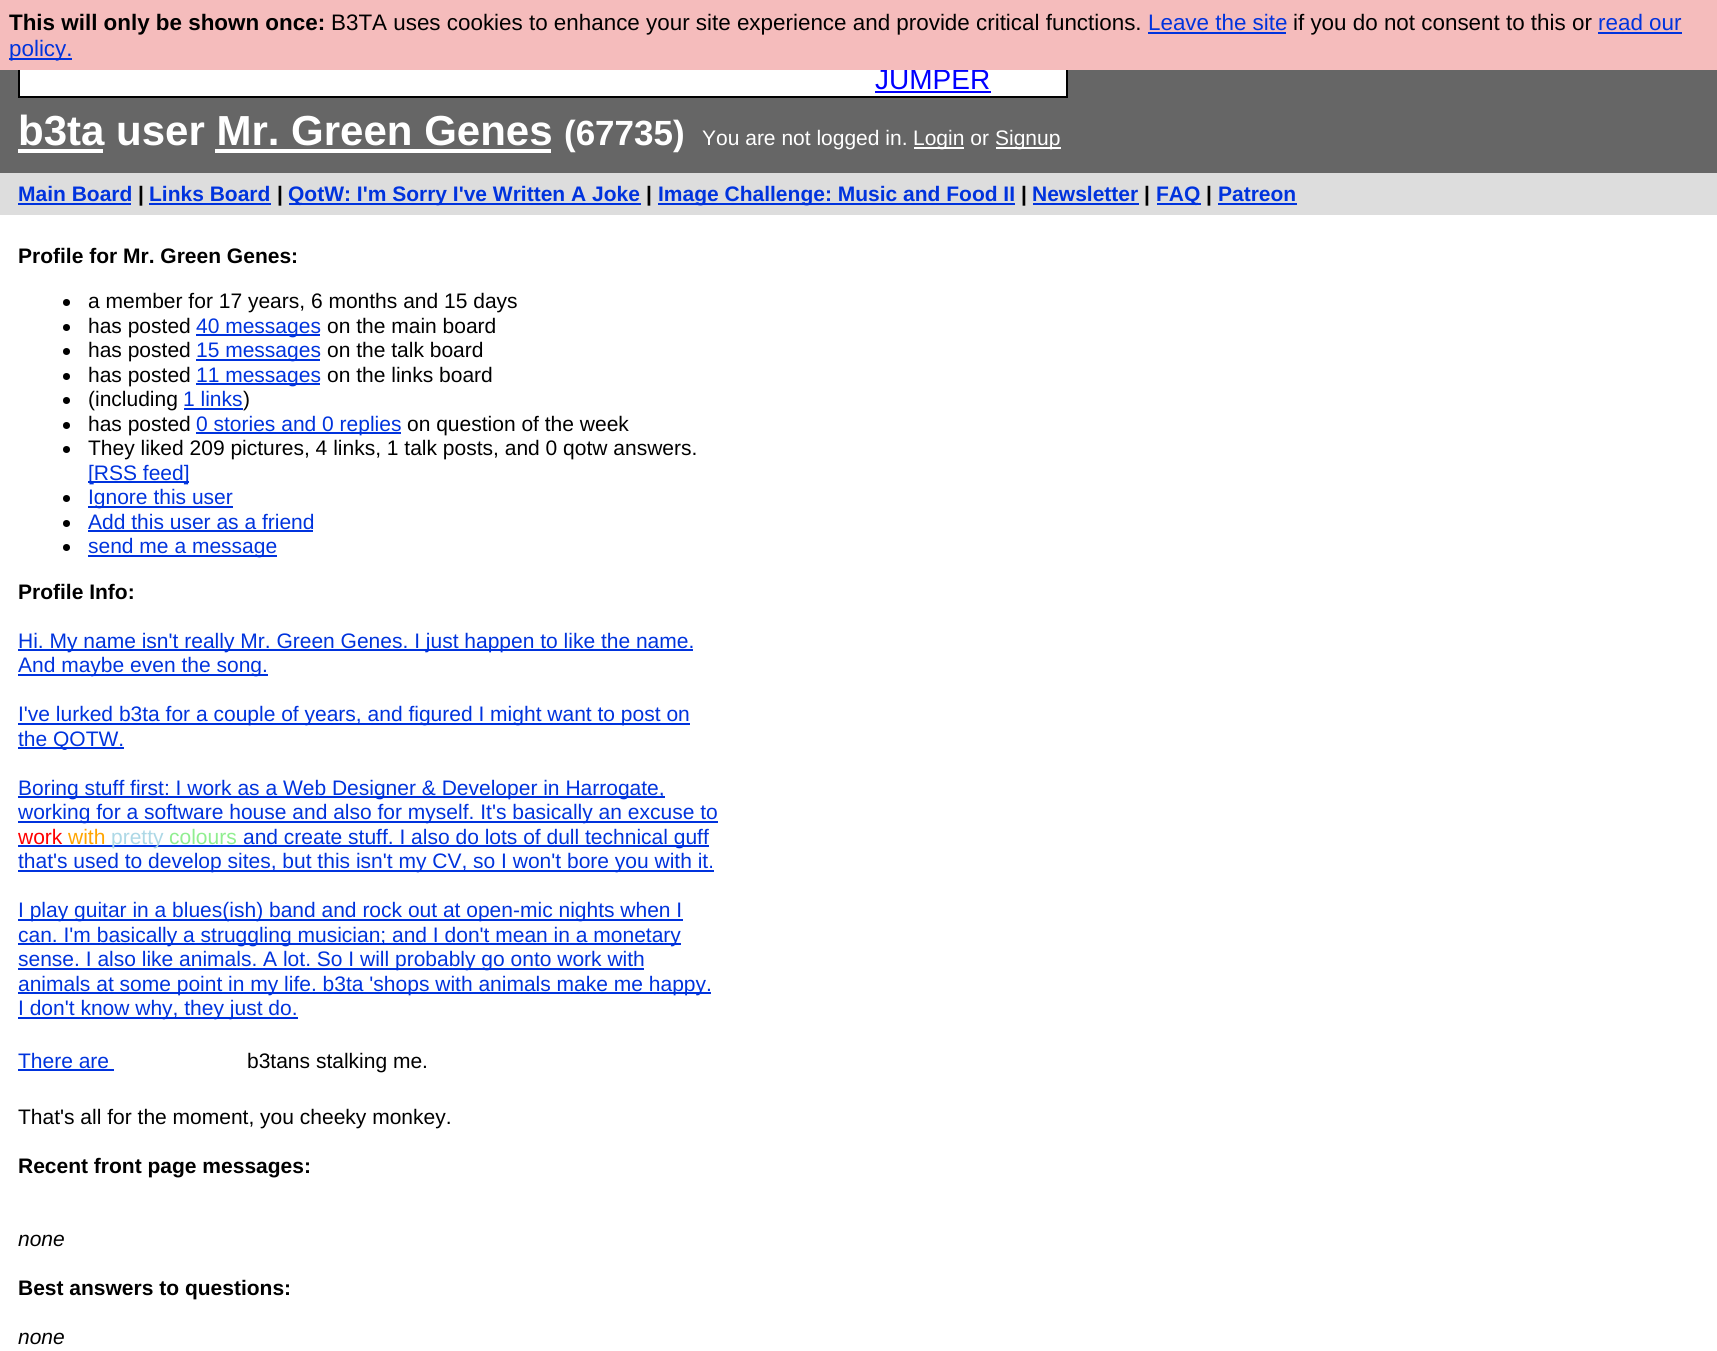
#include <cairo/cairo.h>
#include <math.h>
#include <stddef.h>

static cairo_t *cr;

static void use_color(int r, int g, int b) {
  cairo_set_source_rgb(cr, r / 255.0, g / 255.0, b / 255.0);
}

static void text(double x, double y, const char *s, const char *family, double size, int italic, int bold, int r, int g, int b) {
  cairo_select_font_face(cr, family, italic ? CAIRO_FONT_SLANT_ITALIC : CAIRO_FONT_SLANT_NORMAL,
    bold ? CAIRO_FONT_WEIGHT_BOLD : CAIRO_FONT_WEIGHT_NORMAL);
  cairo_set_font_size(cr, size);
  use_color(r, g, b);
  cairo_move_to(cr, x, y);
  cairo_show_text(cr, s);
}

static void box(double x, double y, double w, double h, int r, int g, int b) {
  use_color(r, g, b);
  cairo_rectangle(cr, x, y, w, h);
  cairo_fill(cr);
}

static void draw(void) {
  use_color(255, 255, 255);
  cairo_paint(cr);
  box(0, 70, 1717, 103, 102, 102, 102);
  box(20, 70, 1046, 26, 255, 255, 255);
  cairo_rectangle(cr, 19, 19, 1048, 78);
  use_color(0, 0, 0);
  cairo_stroke(cr);
  box(875, 91, 116, 2, 0, 0, 255);
  box(18, 149, 85, 4, 255, 255, 255);
  box(215, 149, 336, 4, 255, 255, 255);
  box(914, 147, 50, 2, 255, 255, 255);
  box(996, 147, 65, 2, 255, 255, 255);
  box(0, 173, 1717, 42, 221, 221, 221);
  box(18, 203, 113, 2, 0, 51, 221);
  box(149, 203, 122, 2, 0, 51, 221);
  box(289, 203, 352, 2, 0, 51, 221);
  box(658, 203, 357, 2, 0, 51, 221);
  box(1033, 203, 106, 2, 0, 51, 221);
  box(1157, 203, 44, 2, 0, 51, 221);
  box(1218, 203, 79, 2, 0, 51, 221);
  use_color(0, 0, 0);
  cairo_arc(cr, 66.5, 302.5, 3.5, 0, 2 * M_PI);
  cairo_fill(cr);
  cairo_arc(cr, 66.5, 327.5, 3.5, 0, 2 * M_PI);
  cairo_fill(cr);
  box(196, 334, 124, 2, 0, 51, 221);
  use_color(0, 0, 0);
  cairo_arc(cr, 66.5, 351.5, 3.5, 0, 2 * M_PI);
  cairo_fill(cr);
  box(196, 359, 124, 2, 0, 51, 221);
  use_color(0, 0, 0);
  cairo_arc(cr, 66.5, 376.5, 3.5, 0, 2 * M_PI);
  cairo_fill(cr);
  box(196, 383, 124, 2, 0, 51, 221);
  use_color(0, 0, 0);
  cairo_arc(cr, 66.5, 400.5, 3.5, 0, 2 * M_PI);
  cairo_fill(cr);
  box(184, 408, 59, 2, 0, 51, 221);
  use_color(0, 0, 0);
  cairo_arc(cr, 66.5, 425.5, 3.5, 0, 2 * M_PI);
  cairo_fill(cr);
  box(196, 432, 205, 2, 0, 51, 221);
  use_color(0, 0, 0);
  cairo_arc(cr, 66.5, 449.5, 3.5, 0, 2 * M_PI);
  cairo_fill(cr);
  box(88, 481, 101, 2, 0, 51, 221);
  use_color(0, 0, 0);
  cairo_arc(cr, 66.5, 498.5, 3.5, 0, 2 * M_PI);
  cairo_fill(cr);
  box(88, 506, 145, 2, 0, 51, 221);
  use_color(0, 0, 0);
  cairo_arc(cr, 66.5, 523.5, 3.5, 0, 2 * M_PI);
  cairo_fill(cr);
  box(88, 530, 225, 2, 0, 51, 221);
  use_color(0, 0, 0);
  cairo_arc(cr, 66.5, 547.5, 3.5, 0, 2 * M_PI);
  cairo_fill(cr);
  box(88, 555, 189, 2, 0, 51, 221);
  box(18, 649, 675, 2, 0, 51, 221);
  box(18, 674, 250, 2, 0, 51, 221);
  box(18, 723, 672, 2, 0, 51, 221);
  box(18, 747, 106, 2, 0, 51, 221);
  box(18, 796, 647, 2, 0, 51, 221);
  box(18, 821, 700, 2, 0, 51, 221);
  box(18, 845, 145, 2, 0, 51, 221);
  box(18, 870, 696, 2, 0, 51, 221);
  box(18, 919, 665, 2, 0, 51, 221);
  box(18, 943, 663, 2, 0, 51, 221);
  box(18, 968, 626, 2, 0, 51, 221);
  box(18, 992, 693, 2, 0, 51, 221);
  box(18, 1017, 280, 2, 0, 51, 221);
  box(18, 1069, 96, 2, 0, 51, 221);
  text(875, 89, "JUMPER", "Liberation Sans", 28, 0, 0, 0, 0, 255);
  box(0, 0, 1717, 70, 245, 188, 188);
  box(9, 58, 63, 2, 0, 51, 221);
  text(9, 56, "policy.", "Liberation Sans", 22.4, 0, 0, 0, 51, 221);
  text(1598, 30, "read our", "Liberation Sans", 22.4, 0, 0, 0, 51, 221);
  box(1598, 32, 84, 2, 0, 51, 221);
  text(1293, 30, "if you do not consent to this or", "Liberation Sans", 22.4, 0, 0, 0, 0, 0);
  text(1148, 30, "Leave the site", "Liberation Sans", 22.4, 0, 0, 0, 51, 221);
  box(1148, 32, 138, 2, 0, 51, 221);
  text(331, 30, "B3TA uses cookies to enhance your site experience and provide critical functions.", "Liberation Sans", 22.4, 0, 0, 0, 0, 0);
  text(9, 30, "This will only be shown once:", "Liberation Sans", 22.4, 0, 1, 0, 0, 0);
  text(18, 145, "b3ta user Mr. Green Genes", "Liberation Sans", 42, 0, 1, 255, 255, 255);
  text(564, 145, "(67735)", "Liberation Sans", 35, 0, 1, 255, 255, 255);
  text(702, 145, "You are not logged in.", "Liberation Sans", 21, 0, 0, 255, 255, 255);
  text(913, 145, "Login or", "Liberation Sans", 21, 0, 0, 255, 255, 255);
  text(995, 145, "Signup", "Liberation Sans", 21, 0, 0, 255, 255, 255);
  text(18, 201, "Main Board", "Liberation Sans", 21, 0, 1, 0, 51, 221);
  text(138, 201, "|", "Liberation Sans", 21, 0, 1, 0, 0, 0);
  text(149, 201, "Links Board", "Liberation Sans", 21, 0, 1, 0, 51, 221);
  text(277, 201, "|", "Liberation Sans", 21, 0, 1, 0, 0, 0);
  text(288, 201, "QotW: I'm Sorry I've Written A Joke", "Liberation Sans", 21, 0, 1, 0, 51, 221);
  text(646, 201, "|", "Liberation Sans", 21, 0, 1, 0, 0, 0);
  text(658, 201, "Image Challenge: Music and Food II", "Liberation Sans", 21, 0, 1, 0, 51, 221);
  text(1021, 201, "|", "Liberation Sans", 21, 0, 1, 0, 0, 0);
  text(1032, 201, "Newsletter", "Liberation Sans", 21, 0, 1, 0, 51, 221);
  text(1144, 201, "|", "Liberation Sans", 21, 0, 1, 0, 0, 0);
  text(1156, 201, "FAQ", "Liberation Sans", 21, 0, 1, 0, 51, 221);
  text(1206, 201, "|", "Liberation Sans", 21, 0, 1, 0, 0, 0);
  text(1218, 201, "Patreon", "Liberation Sans", 21, 0, 1, 0, 51, 221);
  text(18, 263, "Profile for Mr. Green Genes:", "Liberation Sans", 21, 0, 1, 0, 0, 0);
  text(88, 308, "a member for 17 years, 6 months and 15 days", "Liberation Sans", 21, 0, 0, 0, 0, 0);
  text(88, 333, "has posted", "Liberation Sans", 21, 0, 0, 0, 0, 0);
  text(196, 333, "40 messages", "Liberation Sans", 21, 0, 0, 0, 51, 221);
  text(327, 333, "on the main board", "Liberation Sans", 21, 0, 0, 0, 0, 0);
  text(88, 357, "has posted", "Liberation Sans", 21, 0, 0, 0, 0, 0);
  text(196, 357, "15 messages", "Liberation Sans", 21, 0, 0, 0, 51, 221);
  text(327, 357, "on the talk board", "Liberation Sans", 21, 0, 0, 0, 0, 0);
  text(88, 382, "has posted", "Liberation Sans", 21, 0, 0, 0, 0, 0);
  text(196, 382, "11 messages", "Liberation Sans", 21, 0, 0, 0, 51, 221);
  text(327, 382, "on the links board", "Liberation Sans", 21, 0, 0, 0, 0, 0);
  text(88, 406, "(including", "Liberation Sans", 21, 0, 0, 0, 0, 0);
  text(183, 406, "1 links", "Liberation Sans", 21, 0, 0, 0, 51, 221);
  text(243, 406, ")", "Liberation Sans", 21, 0, 0, 0, 0, 0);
  text(88, 431, "has posted", "Liberation Sans", 21, 0, 0, 0, 0, 0);
  text(196, 431, "0 stories and 0 replies", "Liberation Sans", 21, 0, 0, 0, 51, 221);
  text(407, 431, "on question of the week", "Liberation Sans", 21, 0, 0, 0, 0, 0);
  text(88, 455, "They liked 209 pictures, 4 links, 1 talk posts, and 0 qotw answers.", "Liberation Sans", 21, 0, 0, 0, 0, 0);
  text(88, 480, "[RSS feed]", "Liberation Sans", 21, 0, 0, 0, 51, 221);
  text(88, 504, "Ignore this user", "Liberation Sans", 21, 0, 0, 0, 51, 221);
  text(88, 529, "Add this user as a friend", "Liberation Sans", 21, 0, 0, 0, 51, 221);
  text(88, 553, "send me a message", "Liberation Sans", 21, 0, 0, 0, 51, 221);
  text(18, 599, "Profile Info:", "Liberation Sans", 21, 0, 1, 0, 0, 0);
  text(18, 648, "Hi. My name isn't really Mr. Green Genes. I just happen to like the name.", "Liberation Sans", 21, 0, 0, 0, 51, 221);
  text(18, 672, "And maybe even the song.", "Liberation Sans", 21, 0, 0, 0, 51, 221);
  text(18, 721, "I've lurked b3ta for a couple of years, and figured I might want to post on", "Liberation Sans", 21, 0, 0, 0, 51, 221);
  text(18, 746, "the QOTW.", "Liberation Sans", 21, 0, 0, 0, 51, 221);
  text(18, 795, "Boring stuff first: I work as a Web Designer & Developer in Harrogate,", "Liberation Sans", 21, 0, 0, 0, 51, 221);
  text(18, 819, "working for a software house and also for myself. It's basically an excuse to", "Liberation Sans", 21, 0, 0, 0, 51, 221);
  text(18, 844, "work", "Liberation Sans", 21, 0, 0, 255, 0, 0);
  text(68, 844, "with", "Liberation Sans", 21, 0, 0, 255, 165, 0);
  text(111, 844, "pretty", "Liberation Sans", 21, 0, 0, 173, 216, 230);
  box(163, 845, 546, 2, 0, 51, 221);
  text(169, 844, "colours", "Liberation Sans", 21, 0, 0, 144, 238, 144);
  text(243, 844, "and create stuff. I also do lots of dull technical guff", "Liberation Sans", 21, 0, 0, 0, 51, 221);
  text(18, 868, "that's used to develop sites, but this isn't my CV, so I won't bore you with it.", "Liberation Sans", 21, 0, 0, 0, 51, 221);
  text(18, 917, "I play guitar in a blues(ish) band and rock out at open-mic nights when I", "Liberation Sans", 21, 0, 0, 0, 51, 221);
  text(18, 942, "can. I'm basically a struggling musician; and I don't mean in a monetary", "Liberation Sans", 21, 0, 0, 0, 51, 221);
  text(18, 966, "sense. I also like animals. A lot. So I will probably go onto work with", "Liberation Sans", 21, 0, 0, 0, 51, 221);
  text(18, 991, "animals at some point in my life. b3ta 'shops with animals make me happy.", "Liberation Sans", 21, 0, 0, 0, 51, 221);
  text(18, 1015, "I don't know why, they just do.", "Liberation Sans", 21, 0, 0, 0, 51, 221);
  text(18, 1068, "There are", "Liberation Sans", 21, 0, 0, 0, 51, 221);
  text(247, 1068, "b3tans stalking me.", "Liberation Sans", 21, 0, 0, 0, 0, 0);
  text(18, 1124, "That's all for the moment, you cheeky monkey.", "Liberation Sans", 21, 0, 0, 0, 0, 0);
  text(18, 1173, "Recent front page messages:", "Liberation Sans", 21, 0, 1, 0, 0, 0);
  text(18, 1246, "none", "Liberation Sans", 21, 1, 0, 0, 0, 0);
  text(18, 1295, "Best answers to questions:", "Liberation Sans", 21, 0, 1, 0, 0, 0);
  text(18, 1344, "none", "Liberation Sans", 21, 1, 0, 0, 0, 0);
}

int main(void) {
  cairo_surface_t *surface = cairo_image_surface_create(CAIRO_FORMAT_RGB24, 1717, 1351);
  cr = cairo_create(surface);
  cairo_font_options_t *options = cairo_font_options_create();
  cairo_font_options_set_hint_metrics(options, CAIRO_HINT_METRICS_OFF);
  cairo_font_options_set_hint_style(options, CAIRO_HINT_STYLE_NONE);
  cairo_set_font_options(cr, options);
  cairo_set_miter_limit(cr, 4);
  draw();
  cairo_surface_write_to_png(surface, "out.png");
  cairo_font_options_destroy(options);
  cairo_destroy(cr);
  cairo_surface_destroy(surface);
  return 0;
}
